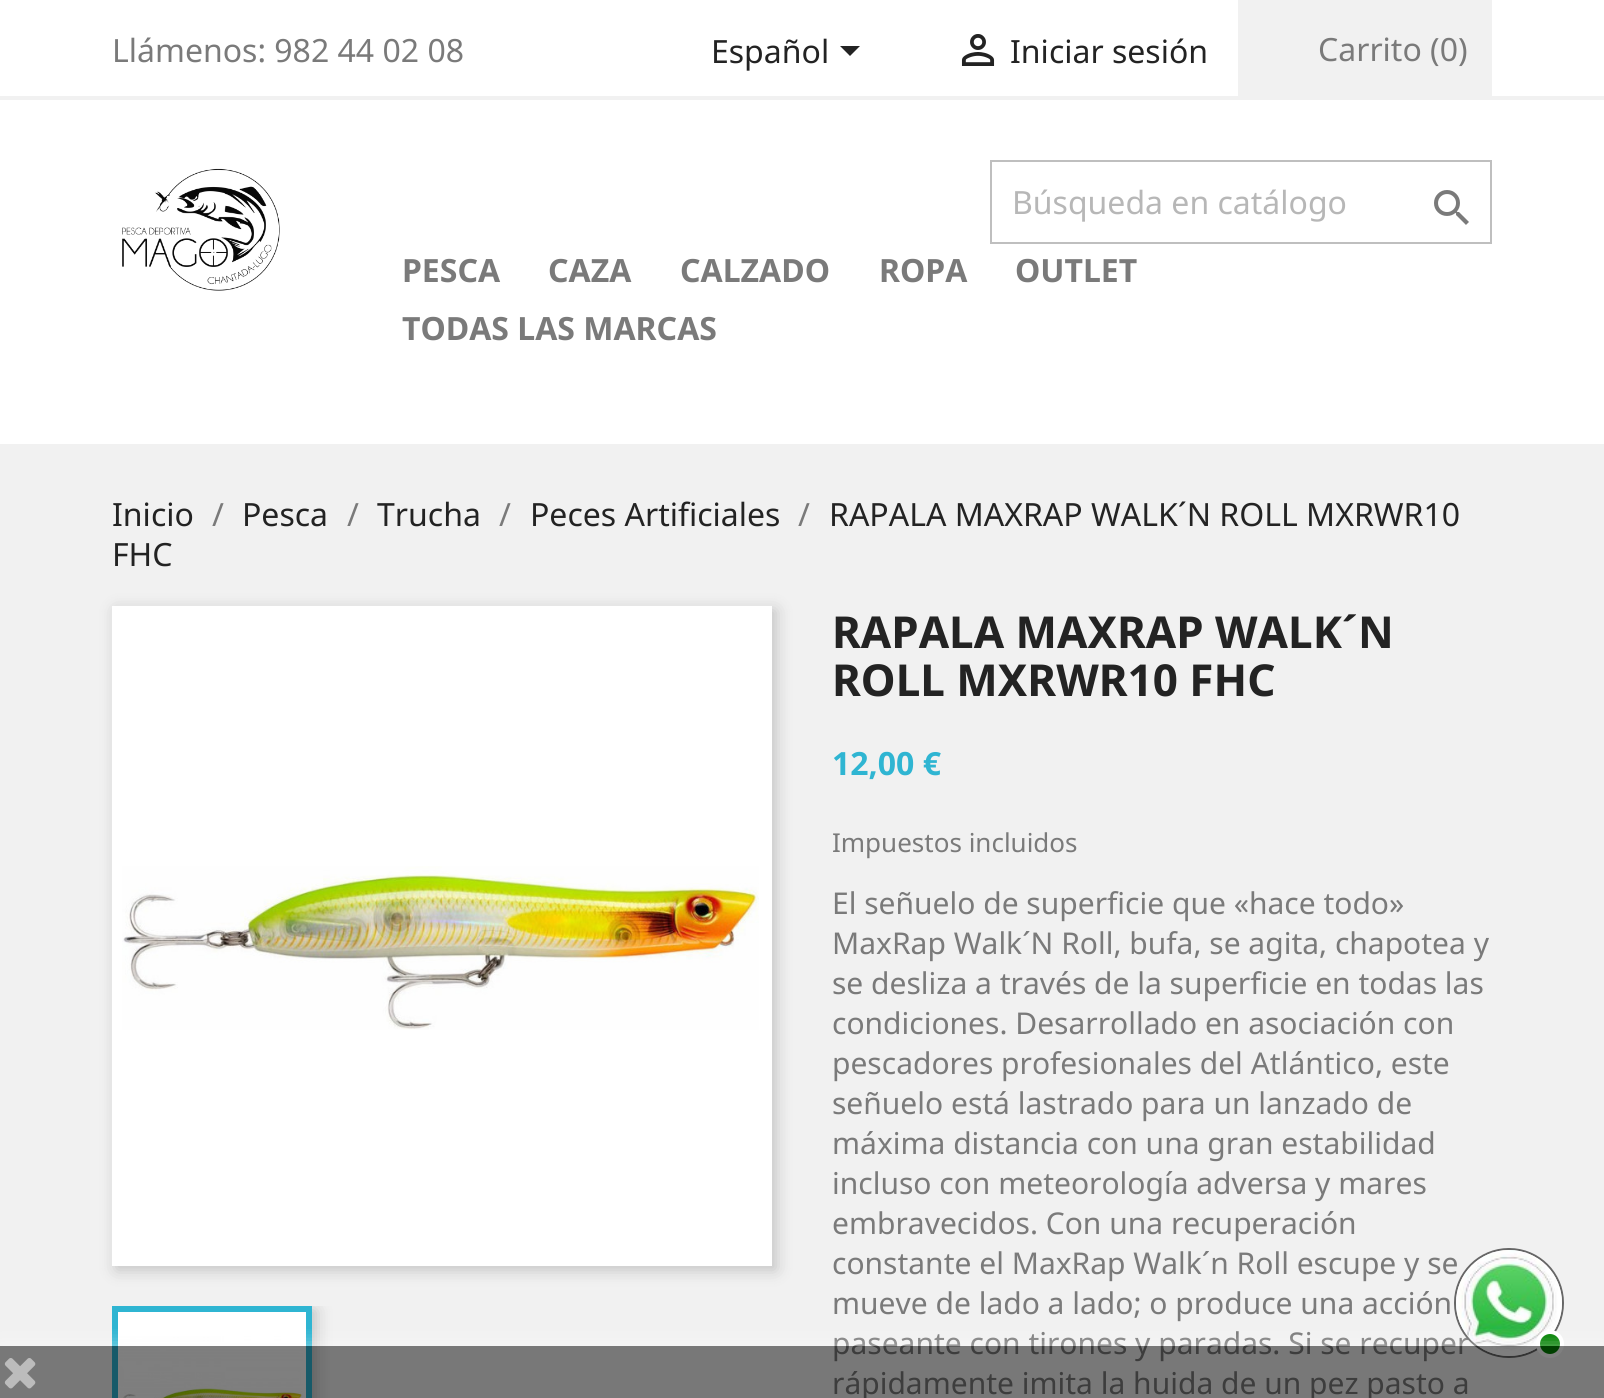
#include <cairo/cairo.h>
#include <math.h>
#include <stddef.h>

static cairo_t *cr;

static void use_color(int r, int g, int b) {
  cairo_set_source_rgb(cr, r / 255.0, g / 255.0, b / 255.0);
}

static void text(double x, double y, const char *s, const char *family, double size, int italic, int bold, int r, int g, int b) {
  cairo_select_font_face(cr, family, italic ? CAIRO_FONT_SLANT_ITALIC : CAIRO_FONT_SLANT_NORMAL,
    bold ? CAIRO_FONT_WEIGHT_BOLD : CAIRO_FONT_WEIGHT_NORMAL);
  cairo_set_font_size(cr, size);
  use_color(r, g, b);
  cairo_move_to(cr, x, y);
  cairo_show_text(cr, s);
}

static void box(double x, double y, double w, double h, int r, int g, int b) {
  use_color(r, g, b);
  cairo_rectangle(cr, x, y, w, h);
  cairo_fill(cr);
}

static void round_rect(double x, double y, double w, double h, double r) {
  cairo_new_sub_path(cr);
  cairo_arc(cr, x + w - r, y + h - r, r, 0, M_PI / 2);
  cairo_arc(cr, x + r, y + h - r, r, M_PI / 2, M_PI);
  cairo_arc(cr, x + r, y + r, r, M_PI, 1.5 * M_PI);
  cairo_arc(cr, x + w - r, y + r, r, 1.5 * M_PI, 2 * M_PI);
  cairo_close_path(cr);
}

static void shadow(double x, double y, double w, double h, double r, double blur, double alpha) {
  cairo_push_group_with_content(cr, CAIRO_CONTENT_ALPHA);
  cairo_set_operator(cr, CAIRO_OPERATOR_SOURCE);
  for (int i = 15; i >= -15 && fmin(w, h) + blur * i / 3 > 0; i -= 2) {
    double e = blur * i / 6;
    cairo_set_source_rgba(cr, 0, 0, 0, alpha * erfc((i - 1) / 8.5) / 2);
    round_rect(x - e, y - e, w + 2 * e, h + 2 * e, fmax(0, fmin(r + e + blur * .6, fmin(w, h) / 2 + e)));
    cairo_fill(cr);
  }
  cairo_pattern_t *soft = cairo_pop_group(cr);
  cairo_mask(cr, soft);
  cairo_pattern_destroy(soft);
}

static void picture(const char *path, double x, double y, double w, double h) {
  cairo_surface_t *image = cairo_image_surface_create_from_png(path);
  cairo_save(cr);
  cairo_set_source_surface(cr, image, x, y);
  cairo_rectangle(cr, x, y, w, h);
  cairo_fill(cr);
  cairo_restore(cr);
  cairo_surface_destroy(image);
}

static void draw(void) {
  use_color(255, 255, 255);
  cairo_paint(cr);
  box(0, 96, 1604, 4, 241, 241, 241);
  use_color(35, 35, 35);
  cairo_new_path(cr);
  cairo_move_to(cr, 840, 46);
  cairo_line_to(cr, 860, 46);
  cairo_line_to(cr, 850, 56);
  cairo_close_path(cr);
  cairo_fill(cr);
  picture("img_01.png", 961, 34, 34, 32);
  box(1238, 0, 254, 96, 241, 241, 241);
  picture("img_02.png", 122, 168, 158, 123);
  cairo_rectangle(cr, 991, 161, 500, 82);
  use_color(191, 191, 191);
  cairo_stroke(cr);
  picture("img_03.png", 1434, 190, 35, 35);
  box(0, 444, 1604, 954, 241, 241, 241);
  use_color(0, 0, 0);
  shadow(116, 610, 660, 660, 0, 8, 0.2);
  box(112, 606, 660, 660, 255, 255, 255);
  picture("img_04.png", 122, 866, 637, 164);
  cairo_save(cr);
  cairo_rectangle(cr, 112, 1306, 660, 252);
  cairo_clip(cr);
  use_color(0, 0, 0);
  shadow(116, 1310, 200, 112, 0, 8, 0.2);
  cairo_restore(cr);
  cairo_rectangle(cr, 115, 1309, 194, 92);
  use_color(47, 181, 210);
  cairo_set_line_width(cr, 6);
  cairo_stroke(cr);
  picture("img_05.png", 118, 1312, 188, 86);
  text(112, 62, "Llámenos: 982 44 02 08", "Noto Sans", 32, 0, 0, 122, 122, 122);
  text(711, 63, "Español", "Noto Sans", 32, 0, 0, 35, 35, 35);
  text(1010, 63, "Iniciar sesión", "Noto Sans", 32, 0, 0, 35, 35, 35);
  text(1318, 61, "Carrito (0)", "Noto Sans", 32, 0, 0, 122, 122, 122);
  text(1012, 214, "Búsqueda en catálogo", "Noto Sans", 32, 0, 0, 183, 183, 183);
  text(402, 282, "PESCA", "Noto Sans", 32, 0, 1, 122, 122, 122);
  text(548, 282, "CAZA", "Noto Sans", 32, 0, 1, 122, 122, 122);
  text(680, 282, "CALZADO", "Noto Sans", 32, 0, 1, 122, 122, 122);
  text(879, 282, "ROPA", "Noto Sans", 32, 0, 1, 122, 122, 122);
  text(1015, 282, "OUTLET", "Noto Sans", 32, 0, 1, 122, 122, 122);
  text(402, 340, "TODAS LAS MARCAS", "Noto Sans", 32, 0, 1, 122, 122, 122);
  text(112, 526, "Inicio", "Noto Sans", 32, 0, 0, 35, 35, 35);
  text(212, 526, "/", "Noto Sans", 32, 0, 0, 122, 122, 122);
  text(242, 526, "Pesca", "Noto Sans", 32, 0, 0, 35, 35, 35);
  text(347, 526, "/", "Noto Sans", 32, 0, 0, 122, 122, 122);
  text(377, 526, "Trucha", "Noto Sans", 32, 0, 0, 35, 35, 35);
  text(499, 526, "/", "Noto Sans", 32, 0, 0, 122, 122, 122);
  text(530, 526, "Peces Artificiales", "Noto Sans", 32, 0, 0, 35, 35, 35);
  text(798, 526, "/", "Noto Sans", 32, 0, 0, 122, 122, 122);
  text(829, 526, "RAPALA MAXRAP WALK´N ROLL MXRWR10", "Noto Sans", 32, 0, 0, 35, 35, 35);
  text(112, 566, "FHC", "Noto Sans", 32, 0, 0, 35, 35, 35);
  text(832, 648, "RAPALA MAXRAP WALK´N", "Noto Sans", 44, 0, 1, 35, 35, 35);
  text(832, 696, "ROLL MXRWR10 FHC", "Noto Sans", 44, 0, 1, 35, 35, 35);
  text(832, 775, "12,00 €", "Noto Sans", 32, 0, 1, 47, 181, 210);
  text(832, 852, "Impuestos incluidos", "Noto Sans", 26, 0, 0, 122, 122, 122);
  text(832, 914, "El señuelo de superficie que «hace todo»", "Noto Sans", 30, 0, 0, 122, 122, 122);
  text(832, 954, "MaxRap Walk´N Roll, bufa, se agita, chapotea y", "Noto Sans", 30, 0, 0, 122, 122, 122);
  text(832, 994, "se desliza a través de la superficie en todas las", "Noto Sans", 30, 0, 0, 122, 122, 122);
  text(832, 1034, "condiciones. Desarrollado en asociación con", "Noto Sans", 30, 0, 0, 122, 122, 122);
  text(832, 1074, "pescadores profesionales del Atlántico, este", "Noto Sans", 30, 0, 0, 122, 122, 122);
  text(832, 1114, "señuelo está lastrado para un lanzado de", "Noto Sans", 30, 0, 0, 122, 122, 122);
  text(832, 1154, "máxima distancia con una gran estabilidad", "Noto Sans", 30, 0, 0, 122, 122, 122);
  text(832, 1194, "incluso con meteorología adversa y mares", "Noto Sans", 30, 0, 0, 122, 122, 122);
  text(832, 1234, "embravecidos. Con una recuperación", "Noto Sans", 30, 0, 0, 122, 122, 122);
  text(832, 1274, "constante el MaxRap Walk´n Roll escupe y se", "Noto Sans", 30, 0, 0, 122, 122, 122);
  text(832, 1314, "mueve de lado a lado; o produce una acción", "Noto Sans", 30, 0, 0, 122, 122, 122);
  text(832, 1354, "paseante con tirones y paradas. Si se recuper", "Noto Sans", 30, 0, 0, 122, 122, 122);
  text(832, 1394, "rápidamente imita la huida de un pez pasto a", "Noto Sans", 30, 0, 0, 122, 122, 122);
  cairo_new_path(cr);
  cairo_arc(cr, 1509, 1303, 54, 0, 2 * M_PI);
  use_color(102, 102, 102);
  cairo_set_line_width(cr, 2);
  cairo_stroke(cr);
  picture("img_06.png", 1456, 1250, 106, 106);
  use_color(0, 128, 0);
  cairo_arc(cr, 1550, 1344, 12, 0, 2 * M_PI);
  cairo_fill_preserve(cr);
  use_color(255, 255, 255);
  cairo_set_line_width(cr, 4);
  cairo_stroke(cr);
  cairo_save(cr);
  cairo_rectangle(cr, 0, 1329, 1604, 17);
  cairo_clip(cr);
  use_color(255, 255, 255);
  shadow(0, 1346, 1604, 52, 0, 10, 0.5);
  cairo_restore(cr);
  cairo_set_source_rgba(cr, 0, 0, 0, 0.5);
  cairo_rectangle(cr, 0, 1346, 1604, 52);
  cairo_fill(cr);
  picture("img_07.png", 4, 1358, 32, 31);
}

int main(void) {
  cairo_surface_t *surface = cairo_image_surface_create(CAIRO_FORMAT_RGB24, 1604, 1398);
  cr = cairo_create(surface);
  cairo_font_options_t *options = cairo_font_options_create();
  cairo_font_options_set_hint_metrics(options, CAIRO_HINT_METRICS_OFF);
  cairo_font_options_set_hint_style(options, CAIRO_HINT_STYLE_NONE);
  cairo_set_font_options(cr, options);
  cairo_set_miter_limit(cr, 4);
  draw();
  cairo_surface_write_to_png(surface, "out.png");
  cairo_font_options_destroy(options);
  cairo_destroy(cr);
  cairo_surface_destroy(surface);
  return 0;
}
